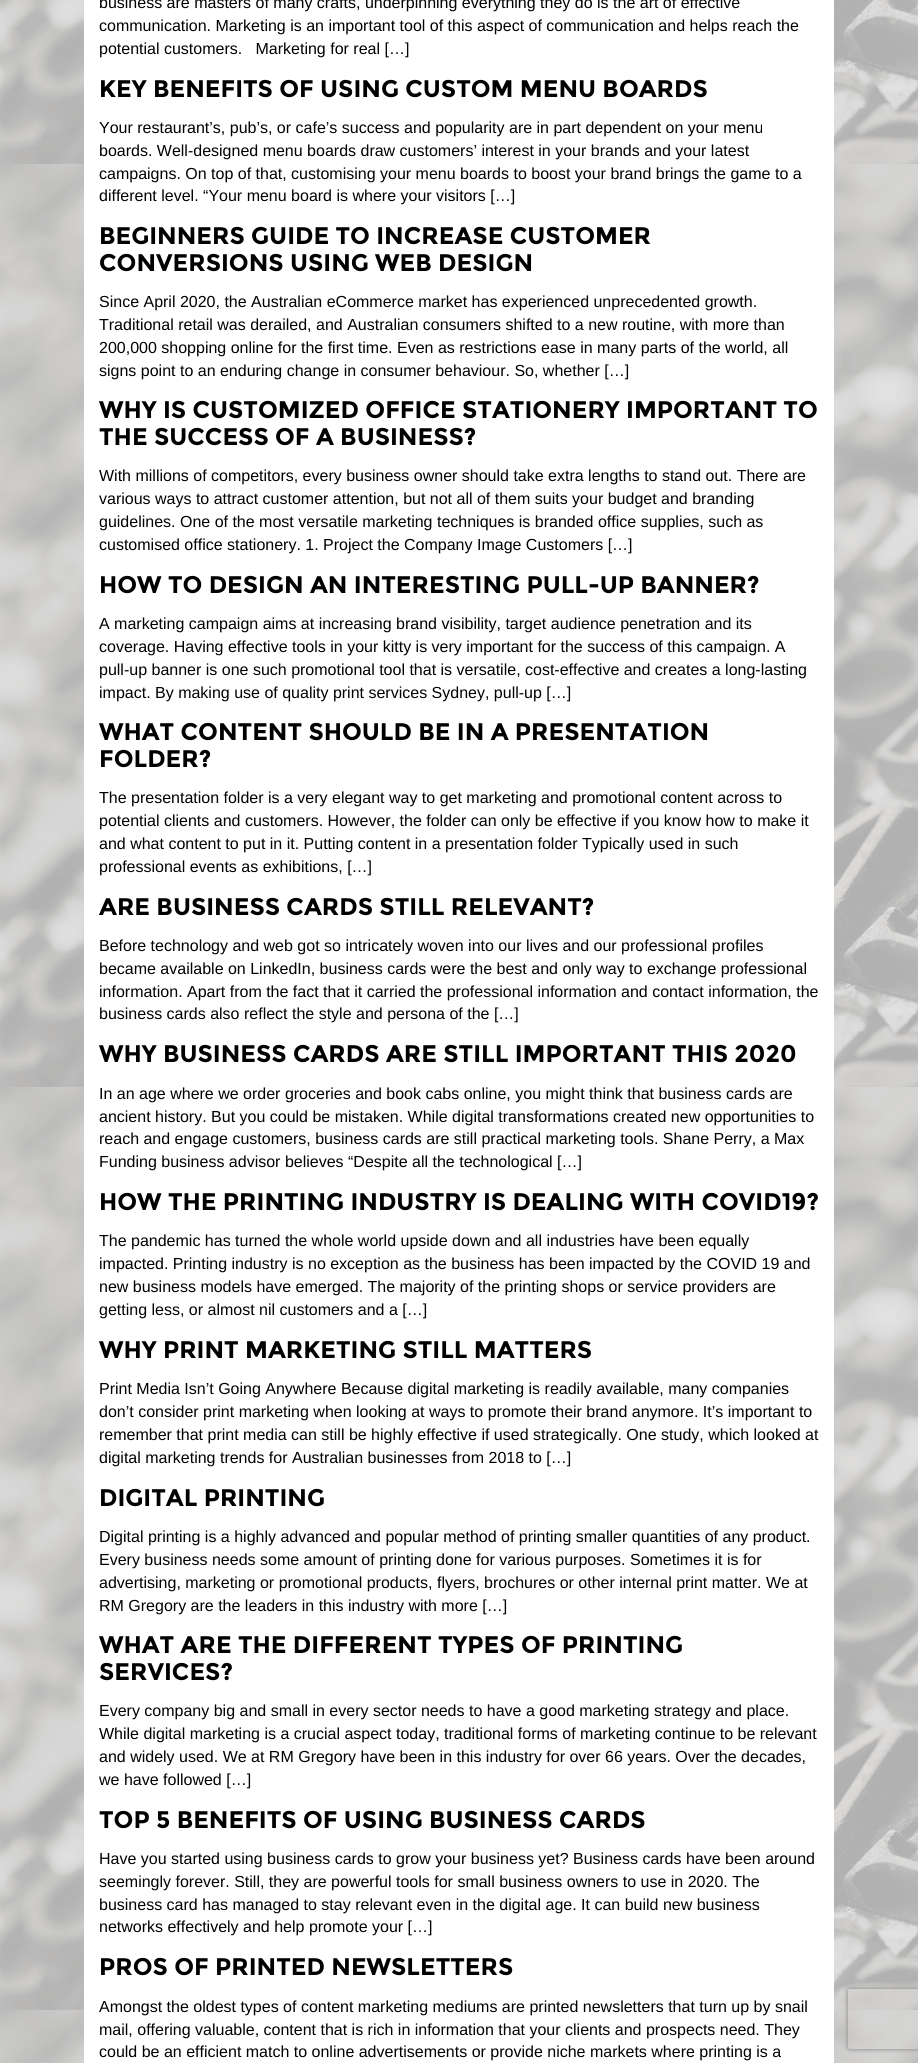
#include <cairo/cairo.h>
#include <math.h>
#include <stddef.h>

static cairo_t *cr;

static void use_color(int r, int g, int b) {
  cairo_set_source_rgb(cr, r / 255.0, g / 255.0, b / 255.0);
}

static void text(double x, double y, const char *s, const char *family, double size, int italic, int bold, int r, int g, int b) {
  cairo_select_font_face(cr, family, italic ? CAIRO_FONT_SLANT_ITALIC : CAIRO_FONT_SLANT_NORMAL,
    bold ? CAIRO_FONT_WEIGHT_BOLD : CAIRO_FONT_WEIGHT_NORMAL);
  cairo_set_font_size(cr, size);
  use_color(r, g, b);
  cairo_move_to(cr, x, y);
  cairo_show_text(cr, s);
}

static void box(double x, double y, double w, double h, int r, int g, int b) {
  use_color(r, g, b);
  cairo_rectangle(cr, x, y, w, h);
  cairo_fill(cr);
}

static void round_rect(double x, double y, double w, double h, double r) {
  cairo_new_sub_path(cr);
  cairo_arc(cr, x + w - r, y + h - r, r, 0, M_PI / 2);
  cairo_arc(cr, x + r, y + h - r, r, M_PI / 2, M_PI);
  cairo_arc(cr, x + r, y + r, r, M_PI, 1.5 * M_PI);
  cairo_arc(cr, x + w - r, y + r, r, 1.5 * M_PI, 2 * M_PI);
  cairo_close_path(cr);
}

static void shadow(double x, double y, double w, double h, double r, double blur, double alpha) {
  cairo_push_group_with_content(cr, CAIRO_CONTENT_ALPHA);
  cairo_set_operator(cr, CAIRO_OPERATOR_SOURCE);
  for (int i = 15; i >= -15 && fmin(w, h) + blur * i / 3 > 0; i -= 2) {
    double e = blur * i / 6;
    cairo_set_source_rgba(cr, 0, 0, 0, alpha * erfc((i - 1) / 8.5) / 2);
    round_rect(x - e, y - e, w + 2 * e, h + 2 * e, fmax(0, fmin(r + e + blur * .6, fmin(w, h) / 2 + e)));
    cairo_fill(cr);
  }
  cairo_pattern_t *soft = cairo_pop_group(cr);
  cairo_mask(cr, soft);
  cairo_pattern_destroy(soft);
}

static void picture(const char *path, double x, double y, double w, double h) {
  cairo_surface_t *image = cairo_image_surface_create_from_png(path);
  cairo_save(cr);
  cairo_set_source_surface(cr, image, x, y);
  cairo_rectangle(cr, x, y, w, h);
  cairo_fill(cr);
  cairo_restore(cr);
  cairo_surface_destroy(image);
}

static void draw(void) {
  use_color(255, 255, 255);
  cairo_paint(cr);
  picture("img_01.png", 0, 0, 918, 2063);
  box(84, 0, 750, 2063, 255, 255, 255);
  cairo_save(cr);
  cairo_set_fill_rule(cr, CAIRO_FILL_RULE_EVEN_ODD);
  cairo_new_path(cr);
  cairo_move_to(cr, 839, 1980);
  cairo_line_to(cr, 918, 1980);
  cairo_line_to(cr, 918, 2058);
  cairo_line_to(cr, 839, 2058);
  cairo_close_path(cr);
  cairo_move_to(cr, 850, 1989);
  cairo_line_to(cr, 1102, 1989);
  cairo_curve_to(cr, 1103, 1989, 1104, 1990, 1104, 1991);
  cairo_line_to(cr, 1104, 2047);
  cairo_curve_to(cr, 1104, 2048, 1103, 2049, 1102, 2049);
  cairo_line_to(cr, 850, 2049);
  cairo_curve_to(cr, 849, 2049, 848, 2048, 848, 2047);
  cairo_line_to(cr, 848, 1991);
  cairo_curve_to(cr, 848, 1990, 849, 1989, 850, 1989);
  cairo_close_path(cr);
  cairo_clip(cr);
  use_color(128, 128, 128);
  shadow(848, 1989, 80, 60, 2, 2.5, 1);
  cairo_restore(cr);
  text(99, 8, "business are masters of many crafts, underpinning everything they do is the art of effective", "Liberation Sans", 16, 0, 0, 0, 0, 0);
  text(99, 31, "communication. Marketing is an important tool of this aspect of communication and helps reach the", "Liberation Sans", 16, 0, 0, 0, 0, 0);
  text(99, 54, "potential customers.   Marketing for real […]", "Liberation Sans", 16, 0, 0, 0, 0, 0);
  text(99, 97, "KEY BENEFITS OF USING CUSTOM MENU BOARDS", "Montserrat", 24, 0, 1, 0, 0, 0);
  text(99, 133, "Your restaurant’s, pub’s, or cafe’s success and popularity are in part dependent on your menu", "Liberation Sans", 16, 0, 0, 0, 0, 0);
  text(99, 156, "boards. Well-designed menu boards draw customers’ interest in your brands and your latest", "Liberation Sans", 16, 0, 0, 0, 0, 0);
  text(99, 179, "campaigns. On top of that, customising your menu boards to boost your brand brings the game to a", "Liberation Sans", 16, 0, 0, 0, 0, 0);
  text(99, 201, "different level. “Your menu board is where your visitors […]", "Liberation Sans", 16, 0, 0, 0, 0, 0);
  text(99, 244, "BEGINNERS GUIDE TO INCREASE CUSTOMER", "Montserrat", 24, 0, 1, 0, 0, 0);
  text(99, 271, "CONVERSIONS USING WEB DESIGN", "Montserrat", 24, 0, 1, 0, 0, 0);
  text(99, 307, "Since April 2020, the Australian eCommerce market has experienced unprecedented growth.", "Liberation Sans", 16, 0, 0, 0, 0, 0);
  text(99, 330, "Traditional retail was derailed, and Australian consumers shifted to a new routine, with more than", "Liberation Sans", 16, 0, 0, 0, 0, 0);
  text(99, 353, "200,000 shopping online for the first time. Even as restrictions ease in many parts of the world, all", "Liberation Sans", 16, 0, 0, 0, 0, 0);
  text(99, 376, "signs point to an enduring change in consumer behaviour. So, whether […]", "Liberation Sans", 16, 0, 0, 0, 0, 0);
  text(99, 418, "WHY IS CUSTOMIZED OFFICE STATIONERY IMPORTANT TO", "Montserrat", 24, 0, 1, 0, 0, 0);
  text(99, 445, "THE SUCCESS OF A BUSINESS?", "Montserrat", 24, 0, 1, 0, 0, 0);
  text(99, 481, "With millions of competitors, every business owner should take extra lengths to stand out. There are", "Liberation Sans", 16, 0, 0, 0, 0, 0);
  text(99, 504, "various ways to attract customer attention, but not all of them suits your budget and branding", "Liberation Sans", 16, 0, 0, 0, 0, 0);
  text(99, 527, "guidelines. One of the most versatile marketing techniques is branded office supplies, such as", "Liberation Sans", 16, 0, 0, 0, 0, 0);
  text(99, 550, "customised office stationery. 1. Project the Company Image Customers […]", "Liberation Sans", 16, 0, 0, 0, 0, 0);
  text(99, 593, "HOW TO DESIGN AN INTERESTING PULL-UP BANNER?", "Montserrat", 24, 0, 1, 0, 0, 0);
  text(99, 629, "A marketing campaign aims at increasing brand visibility, target audience penetration and its", "Liberation Sans", 16, 0, 0, 0, 0, 0);
  text(99, 652, "coverage. Having effective tools in your kitty is very important for the success of this campaign. A", "Liberation Sans", 16, 0, 0, 0, 0, 0);
  text(99, 675, "pull-up banner is one such promotional tool that is versatile, cost-effective and creates a long-lasting", "Liberation Sans", 16, 0, 0, 0, 0, 0);
  text(99, 698, "impact. By making use of quality print services Sydney, pull-up […]", "Liberation Sans", 16, 0, 0, 0, 0, 0);
  text(99, 740, "WHAT CONTENT SHOULD BE IN A PRESENTATION", "Montserrat", 24, 0, 1, 0, 0, 0);
  text(99, 767, "FOLDER?", "Montserrat", 24, 0, 1, 0, 0, 0);
  text(99, 803, "The presentation folder is a very elegant way to get marketing and promotional content across to", "Liberation Sans", 16, 0, 0, 0, 0, 0);
  text(99, 826, "potential clients and customers. However, the folder can only be effective if you know how to make it", "Liberation Sans", 16, 0, 0, 0, 0, 0);
  text(99, 849, "and what content to put in it. Putting content in a presentation folder Typically used in such", "Liberation Sans", 16, 0, 0, 0, 0, 0);
  text(99, 872, "professional events as exhibitions, […]", "Liberation Sans", 16, 0, 0, 0, 0, 0);
  text(99, 915, "ARE BUSINESS CARDS STILL RELEVANT?", "Montserrat", 24, 0, 1, 0, 0, 0);
  text(99, 951, "Before technology and web got so intricately woven into our lives and our professional profiles", "Liberation Sans", 16, 0, 0, 0, 0, 0);
  text(99, 974, "became available on LinkedIn, business cards were the best and only way to exchange professional", "Liberation Sans", 16, 0, 0, 0, 0, 0);
  text(99, 997, "information. Apart from the fact that it carried the professional information and contact information, the", "Liberation Sans", 16, 0, 0, 0, 0, 0);
  text(99, 1019, "business cards also reflect the style and persona of the […]", "Liberation Sans", 16, 0, 0, 0, 0, 0);
  text(99, 1062, "WHY BUSINESS CARDS ARE STILL IMPORTANT THIS 2020", "Montserrat", 24, 0, 1, 0, 0, 0);
  text(99, 1099, "In an age where we order groceries and book cabs online, you might think that business cards are", "Liberation Sans", 16, 0, 0, 0, 0, 0);
  text(99, 1122, "ancient history. But you could be mistaken. While digital transformations created new opportunities to", "Liberation Sans", 16, 0, 0, 0, 0, 0);
  text(99, 1144, "reach and engage customers, business cards are still practical marketing tools. Shane Perry, a Max", "Liberation Sans", 16, 0, 0, 0, 0, 0);
  text(99, 1167, "Funding business advisor believes “Despite all the technological […]", "Liberation Sans", 16, 0, 0, 0, 0, 0);
  text(99, 1210, "HOW THE PRINTING INDUSTRY IS DEALING WITH COVID19?", "Montserrat", 24, 0, 1, 0, 0, 0);
  text(99, 1246, "The pandemic has turned the whole world upside down and all industries have been equally", "Liberation Sans", 16, 0, 0, 0, 0, 0);
  text(99, 1269, "impacted. Printing industry is no exception as the business has been impacted by the COVID 19 and", "Liberation Sans", 16, 0, 0, 0, 0, 0);
  text(99, 1292, "new business models have emerged. The majority of the printing shops or service providers are", "Liberation Sans", 16, 0, 0, 0, 0, 0);
  text(99, 1315, "getting less, or almost nil customers and a […]", "Liberation Sans", 16, 0, 0, 0, 0, 0);
  text(99, 1358, "WHY PRINT MARKETING STILL MATTERS", "Montserrat", 24, 0, 1, 0, 0, 0);
  text(99, 1394, "Print Media Isn’t Going Anywhere Because digital marketing is readily available, many companies", "Liberation Sans", 16, 0, 0, 0, 0, 0);
  text(99, 1417, "don’t consider print marketing when looking at ways to promote their brand anymore. It’s important to", "Liberation Sans", 16, 0, 0, 0, 0, 0);
  text(99, 1440, "remember that print media can still be highly effective if used strategically. One study, which looked at", "Liberation Sans", 16, 0, 0, 0, 0, 0);
  text(99, 1463, "digital marketing trends for Australian businesses from 2018 to […]", "Liberation Sans", 16, 0, 0, 0, 0, 0);
  text(99, 1506, "DIGITAL PRINTING", "Montserrat", 24, 0, 1, 0, 0, 0);
  text(99, 1542, "Digital printing is a highly advanced and popular method of printing smaller quantities of any product.", "Liberation Sans", 16, 0, 0, 0, 0, 0);
  text(99, 1565, "Every business needs some amount of printing done for various purposes. Sometimes it is for", "Liberation Sans", 16, 0, 0, 0, 0, 0);
  text(99, 1588, "advertising, marketing or promotional products, flyers, brochures or other internal print matter. We at", "Liberation Sans", 16, 0, 0, 0, 0, 0);
  text(99, 1611, "RM Gregory are the leaders in this industry with more […]", "Liberation Sans", 16, 0, 0, 0, 0, 0);
  text(99, 1653, "WHAT ARE THE DIFFERENT TYPES OF PRINTING", "Montserrat", 24, 0, 1, 0, 0, 0);
  text(99, 1680, "SERVICES?", "Montserrat", 24, 0, 1, 0, 0, 0);
  text(99, 1716, "Every company big and small in every sector needs to have a good marketing strategy and place.", "Liberation Sans", 16, 0, 0, 0, 0, 0);
  text(99, 1739, "While digital marketing is a crucial aspect today, traditional forms of marketing continue to be relevant", "Liberation Sans", 16, 0, 0, 0, 0, 0);
  text(99, 1762, "and widely used. We at RM Gregory have been in this industry for over 66 years. Over the decades,", "Liberation Sans", 16, 0, 0, 0, 0, 0);
  text(99, 1785, "we have followed […]", "Liberation Sans", 16, 0, 0, 0, 0, 0);
  text(99, 1828, "TOP 5 BENEFITS OF USING BUSINESS CARDS", "Montserrat", 24, 0, 1, 0, 0, 0);
  text(99, 1864, "Have you started using business cards to grow your business yet? Business cards have been around", "Liberation Sans", 16, 0, 0, 0, 0, 0);
  text(99, 1887, "seemingly forever. Still, they are powerful tools for small business owners to use in 2020. The", "Liberation Sans", 16, 0, 0, 0, 0, 0);
  text(99, 1910, "business card has managed to stay relevant even in the digital age. It can build new business", "Liberation Sans", 16, 0, 0, 0, 0, 0);
  text(99, 1932, "networks effectively and help promote your […]", "Liberation Sans", 16, 0, 0, 0, 0, 0);
  text(99, 1975, "PROS OF PRINTED NEWSLETTERS", "Montserrat", 24, 0, 1, 0, 0, 0);
  text(99, 2012, "Amongst the oldest types of content marketing mediums are printed newsletters that turn up by snail", "Liberation Sans", 16, 0, 0, 0, 0, 0);
  text(99, 2035, "mail, offering valuable, content that is rich in information that your clients and prospects need. They", "Liberation Sans", 16, 0, 0, 0, 0, 0);
  text(99, 2057, "could be an efficient match to online advertisements or provide niche markets where printing is a", "Liberation Sans", 16, 0, 0, 0, 0, 0);
}

int main(void) {
  cairo_surface_t *surface = cairo_image_surface_create(CAIRO_FORMAT_RGB24, 918, 2063);
  cr = cairo_create(surface);
  cairo_font_options_t *options = cairo_font_options_create();
  cairo_font_options_set_hint_metrics(options, CAIRO_HINT_METRICS_OFF);
  cairo_font_options_set_hint_style(options, CAIRO_HINT_STYLE_NONE);
  cairo_set_font_options(cr, options);
  cairo_set_miter_limit(cr, 4);
  draw();
  cairo_surface_write_to_png(surface, "out.png");
  cairo_font_options_destroy(options);
  cairo_destroy(cr);
  cairo_surface_destroy(surface);
  return 0;
}
